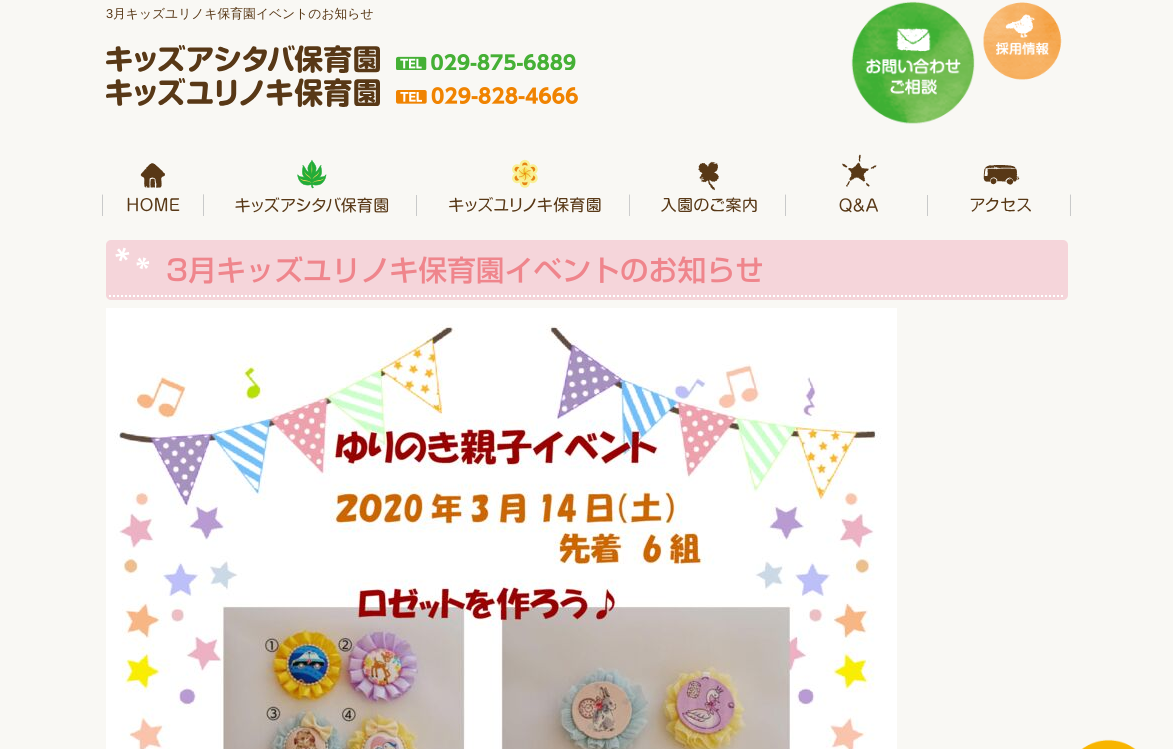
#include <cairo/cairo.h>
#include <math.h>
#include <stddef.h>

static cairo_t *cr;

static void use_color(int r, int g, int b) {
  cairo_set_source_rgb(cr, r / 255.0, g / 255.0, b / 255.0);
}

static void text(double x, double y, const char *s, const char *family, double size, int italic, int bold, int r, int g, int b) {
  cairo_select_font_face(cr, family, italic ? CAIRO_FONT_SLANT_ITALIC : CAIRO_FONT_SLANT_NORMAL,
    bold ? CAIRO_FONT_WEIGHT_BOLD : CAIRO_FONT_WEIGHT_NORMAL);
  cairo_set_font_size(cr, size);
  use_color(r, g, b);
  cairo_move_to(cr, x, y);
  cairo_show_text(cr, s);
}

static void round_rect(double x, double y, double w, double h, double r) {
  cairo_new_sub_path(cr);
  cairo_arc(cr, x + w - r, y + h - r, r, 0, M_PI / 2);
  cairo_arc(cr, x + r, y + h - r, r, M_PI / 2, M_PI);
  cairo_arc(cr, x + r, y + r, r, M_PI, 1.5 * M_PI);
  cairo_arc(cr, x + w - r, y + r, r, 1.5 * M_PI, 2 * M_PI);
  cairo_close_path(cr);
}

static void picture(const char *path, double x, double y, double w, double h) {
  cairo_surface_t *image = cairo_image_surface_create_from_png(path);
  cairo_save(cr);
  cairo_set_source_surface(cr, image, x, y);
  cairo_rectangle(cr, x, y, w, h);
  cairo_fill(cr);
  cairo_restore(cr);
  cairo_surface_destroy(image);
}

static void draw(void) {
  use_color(249, 248, 244);
  cairo_paint(cr);
  picture("img_01.png", 106, 45, 274, 28);
  picture("img_02.png", 396, 54, 180, 16);
  picture("img_03.png", 106, 78, 274, 29);
  picture("img_04.png", 396, 87, 182, 17);
  picture("img_05.png", 851, 1, 124, 123);
  picture("img_06.png", 983, 2, 79, 78);
  picture("img_07.png", 102, 163, 102, 53);
  picture("img_08.png", 235, 159, 182, 57);
  picture("img_09.png", 448, 159, 182, 57);
  picture("img_10.png", 661, 161, 125, 55);
  picture("img_11.png", 839, 154, 89, 62);
  picture("img_12.png", 970, 165, 101, 51);
  use_color(245, 213, 218);
  round_rect(106, 240, 962, 60, 5);
  cairo_fill(cr);
  cairo_new_path(cr);
  cairo_move_to(cr, 109, 296);
  cairo_line_to(cr, 1065, 296);
  use_color(255, 255, 255);
  cairo_set_dash(cr, (double[]){2, 2}, 2, 0);
  cairo_stroke(cr);
  picture("img_13.png", 106, 308, 791, 441);
  picture("img_14.png", 1081, 739, 55, 10);
  text(106, 18, "3", "Liberation Sans", 12.8, 0, 0, 88, 56, 22);
  text(113, 18, "月キッズユリノキ保育園イベントのお知らせ", "WenQuanYi Zen Hei Medium", 12.8, 0, 0, 88, 56, 22);
  cairo_save(cr);
  cairo_translate(cr, 103, 263);
  cairo_rotate(cr, 20 * M_PI / 180);
  text(0, 0, "＊", "WenQuanYi Zen Hei", 30, 0, 1, 255, 255, 255);
  cairo_restore(cr);
  cairo_save(cr);
  cairo_translate(cr, 131, 274);
  cairo_rotate(cr, 20 * M_PI / 180);
  text(0, 0, "*", "Liberation Serif", 30, 0, 1, 255, 255, 255);
  cairo_restore(cr);
  text(166, 281, "3月キッズユリノキ保育園イベントのお知らせ", "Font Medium", 28.8, 0, 0, 239, 133, 140);
}

int main(void) {
  cairo_surface_t *surface = cairo_image_surface_create(CAIRO_FORMAT_RGB24, 1173, 749);
  cr = cairo_create(surface);
  cairo_font_options_t *options = cairo_font_options_create();
  cairo_font_options_set_hint_metrics(options, CAIRO_HINT_METRICS_OFF);
  cairo_font_options_set_hint_style(options, CAIRO_HINT_STYLE_NONE);
  cairo_set_font_options(cr, options);
  cairo_set_miter_limit(cr, 4);
  draw();
  cairo_surface_write_to_png(surface, "out.png");
  cairo_font_options_destroy(options);
  cairo_destroy(cr);
  cairo_surface_destroy(surface);
  return 0;
}
